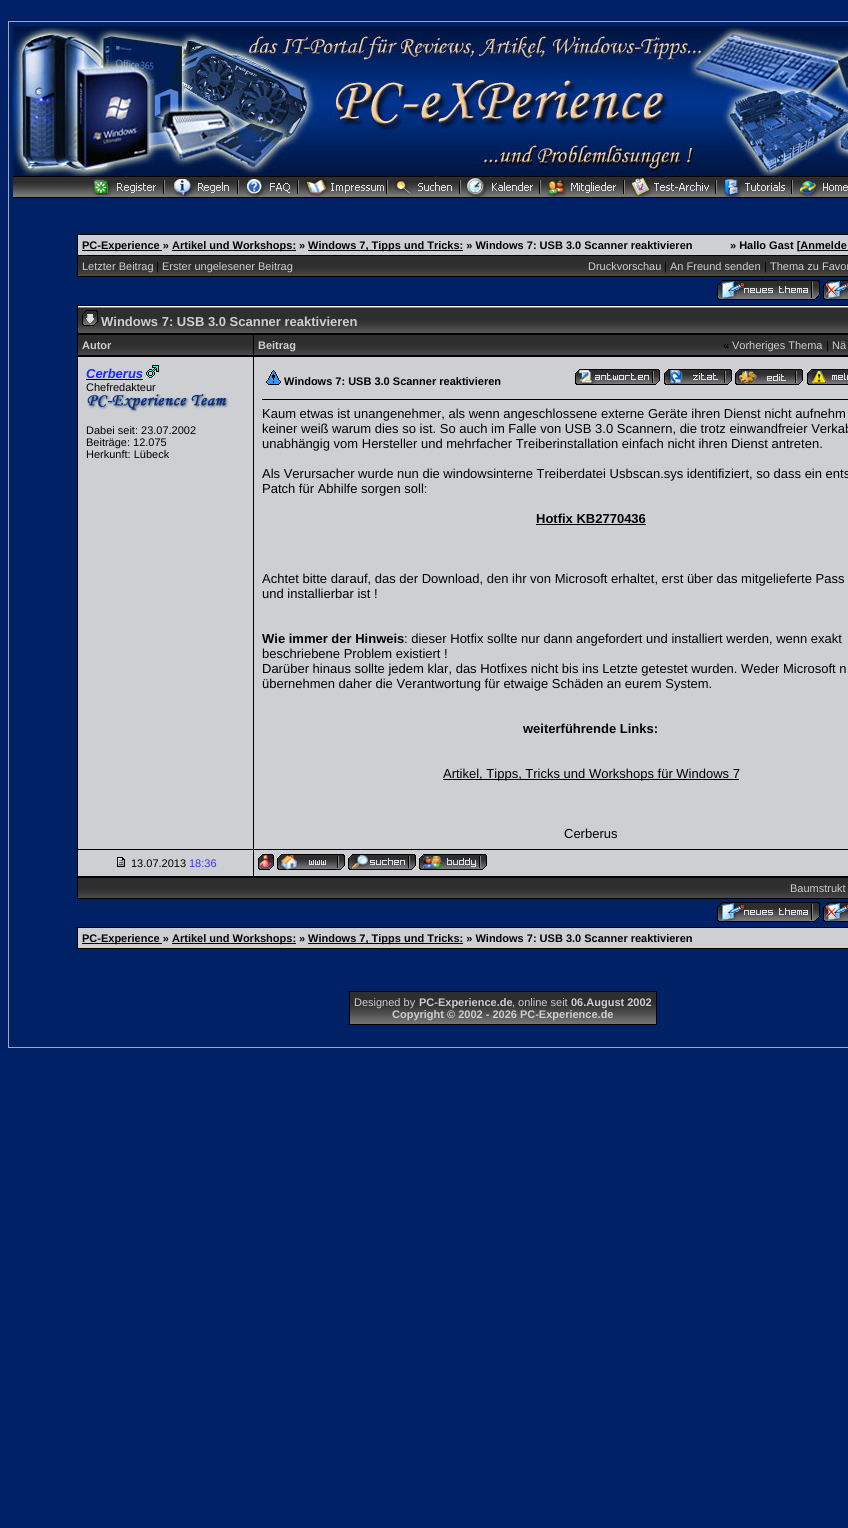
#include <cairo/cairo.h>
#include <math.h>
#include <stddef.h>

static cairo_t *cr;

static void use_color(int r, int g, int b) {
  cairo_set_source_rgb(cr, r / 255.0, g / 255.0, b / 255.0);
}

static void text(double x, double y, const char *s, const char *family, double size, int italic, int bold, int r, int g, int b) {
  cairo_select_font_face(cr, family, italic ? CAIRO_FONT_SLANT_ITALIC : CAIRO_FONT_SLANT_NORMAL,
    bold ? CAIRO_FONT_WEIGHT_BOLD : CAIRO_FONT_WEIGHT_NORMAL);
  cairo_set_font_size(cr, size);
  use_color(r, g, b);
  cairo_move_to(cr, x, y);
  cairo_show_text(cr, s);
}

static void box(double x, double y, double w, double h, int r, int g, int b) {
  use_color(r, g, b);
  cairo_rectangle(cr, x, y, w, h);
  cairo_fill(cr);
}

static void picture(const char *path, double x, double y, double w, double h) {
  cairo_surface_t *image = cairo_image_surface_create_from_png(path);
  cairo_save(cr);
  cairo_set_source_surface(cr, image, x, y);
  cairo_rectangle(cr, x, y, w, h);
  cairo_fill(cr);
  cairo_restore(cr);
  cairo_surface_destroy(image);
}

static void draw(void) {
  use_color(0, 33, 102);
  cairo_paint(cr);
  box(8, 21, 840, 1027, 163, 170, 177);
  box(9, 22, 839, 1025, 0, 33, 102);
  picture("img_01.png", 13, 26, 835, 150);
  picture("img_02.png", 13, 176, 835, 22);
  picture("img_03.png", 92, 179, 73, 18);
  picture("img_04.png", 173, 179, 66, 18);
  picture("img_05.png", 246, 179, 53, 18);
  picture("img_06.png", 305, 178, 83, 19);
  picture("img_07.png", 394, 179, 67, 17);
  picture("img_08.png", 465, 177, 76, 20);
  picture("img_09.png", 547, 180, 78, 17);
  picture("img_10.png", 631, 178, 86, 19);
  picture("img_11.png", 723, 177, 70, 20);
  picture("img_12.png", 799, 181, 49, 16);
  box(77, 234, 771, 43, 0, 0, 0);
  box(78, 235, 770, 20, 206, 207, 210);
  box(82, 250, 80, 1, 0, 0, 0);
  box(172, 250, 124, 1, 0, 0, 0);
  box(308, 250, 155, 1, 0, 0, 0);
  box(800, 250, 48, 1, 0, 0, 0);
  picture("img_13.png", 78, 256, 770, 20);
  picture("img_14.png", 717, 280, 103, 20);
  picture("img_15.png", 823, 280, 25, 20);
  box(77, 305, 771, 594, 0, 0, 0);
  picture("img_16.png", 78, 306, 770, 27);
  picture("img_17.png", 82, 310, 16, 16);
  picture("img_18.png", 78, 335, 175, 20);
  picture("img_19.png", 254, 335, 594, 20);
  box(78, 357, 175, 492, 206, 207, 210);
  box(86, 379, 57, 1, 0, 0, 0);
  picture("img_20.png", 146, 365, 13, 13);
  picture("img_21.png", 87, 393, 142, 19);
  box(254, 357, 594, 492, 206, 207, 210);
  picture("img_22.png", 266, 370, 15, 15);
  picture("img_23.png", 575, 369, 85, 16);
  picture("img_24.png", 664, 369, 68, 16);
  picture("img_25.png", 735, 369, 68, 16);
  picture("img_26.png", 807, 369, 41, 16);
  box(262, 399, 586, 1, 0, 0, 0);
  box(536, 524, 110, 1, 0, 0, 0);
  box(443, 779, 296, 1, 0, 0, 0);
  box(78, 850, 175, 26, 206, 207, 210);
  picture("img_27.png", 117, 857, 8, 10);
  box(254, 850, 594, 26, 206, 207, 210);
  picture("img_28.png", 258, 854, 16, 16);
  picture("img_29.png", 277, 854, 68, 16);
  picture("img_30.png", 348, 854, 68, 16);
  picture("img_31.png", 419, 854, 68, 16);
  picture("img_13.png", 78, 878, 770, 20);
  picture("img_14.png", 717, 902, 103, 20);
  picture("img_15.png", 823, 902, 25, 20);
  box(77, 927, 771, 22, 0, 0, 0);
  box(78, 928, 770, 20, 206, 207, 210);
  box(82, 943, 80, 1, 0, 0, 0);
  box(172, 943, 124, 1, 0, 0, 0);
  box(308, 943, 155, 1, 0, 0, 0);
  box(349, 991, 308, 34, 0, 0, 0);
  picture("img_32.png", 350, 992, 306, 32);
  text(82, 249, "PC-Experience »", "Liberation Sans", 11, 0, 1, 0, 0, 0);
  text(172, 249, "Artikel und Workshops: »", "Liberation Sans", 11, 0, 1, 0, 0, 0);
  text(308, 249, "Windows 7, Tipps und Tricks: » Windows 7: USB 3.0 Scanner reaktivieren", "Liberation Sans", 11, 0, 1, 0, 0, 0);
  text(730, 249, "» Hallo Gast [Anmelde", "Liberation Sans", 11, 0, 1, 0, 0, 0);
  text(82, 270, "Letzter Beitrag", "Liberation Sans", 11, 0, 0, 206, 207, 210);
  text(156, 270, "|", "Liberation Sans", 11, 0, 0, 0, 0, 0);
  text(162, 270, "Erster ungelesener Beitrag", "Liberation Sans", 11, 0, 0, 206, 207, 210);
  text(588, 270, "Druckvorschau", "Liberation Sans", 11, 0, 0, 206, 207, 210);
  text(664, 270, "|", "Liberation Sans", 11, 0, 0, 0, 0, 0);
  text(670, 270, "An Freund senden", "Liberation Sans", 11, 0, 0, 206, 207, 210);
  text(764, 270, "|", "Liberation Sans", 11, 0, 0, 0, 0, 0);
  text(770, 270, "Thema zu Favor", "Liberation Sans", 11, 0, 0, 206, 207, 210);
  text(101, 326, "Windows 7: USB 3.0 Scanner reaktivieren", "Liberation Sans", 13, 0, 1, 206, 207, 210);
  text(82, 349, "Autor", "Liberation Sans", 11, 0, 1, 206, 207, 210);
  text(258, 349, "Beitrag", "Liberation Sans", 11, 0, 1, 206, 207, 210);
  text(723, 349, "«", "Liberation Sans", 11, 0, 1, 0, 0, 0);
  text(732, 349, "Vorheriges Thema", "Liberation Sans", 11, 0, 0, 206, 207, 210);
  text(826, 349, "|", "Liberation Sans", 11, 0, 0, 0, 0, 0);
  text(832, 349, "Nä", "Liberation Sans", 11, 0, 0, 206, 207, 210);
  text(86, 378, "Cerberus", "Liberation Sans", 13, 1, 1, 27, 42, 254);
  text(86, 391, "Chefredakteur", "Liberation Sans", 11, 0, 0, 0, 0, 0);
  text(86, 434, "Dabei seit: 23.07.2002", "Liberation Sans", 11, 0, 0, 0, 0, 0);
  text(86, 446, "Beiträge: 12.075", "Liberation Sans", 11, 0, 0, 0, 0, 0);
  text(86, 458, "Herkunft: Lübeck", "Liberation Sans", 11, 0, 0, 0, 0, 0);
  text(284, 385, "Windows 7: USB 3.0 Scanner reaktivieren", "Liberation Sans", 11, 0, 1, 0, 0, 0);
  text(262, 418, "Kaum etwas ist unangenehmer, als wenn angeschlossene externe Geräte ihren Dienst nicht aufnehm", "Liberation Sans", 13, 0, 0, 0, 0, 0);
  text(262, 433, "keiner weiß warum dies so ist. So auch im Falle von USB 3.0 Scannern, die trotz einwandfreier Verkab", "Liberation Sans", 13, 0, 0, 0, 0, 0);
  text(262, 448, "unabhängig vom Hersteller und mehrfacher Treiberinstallation einfach nicht ihren Dienst antreten.", "Liberation Sans", 13, 0, 0, 0, 0, 0);
  text(262, 478, "Als Verursacher wurde nun die windowsinterne Treiberdatei Usbscan.sys identifiziert, so dass ein ents", "Liberation Sans", 13, 0, 0, 0, 0, 0);
  text(262, 493, "Patch für Abhilfe sorgen soll:", "Liberation Sans", 13, 0, 0, 0, 0, 0);
  text(536, 523, "Hotfix KB2770436", "Liberation Sans", 13, 0, 1, 0, 0, 0);
  text(262, 583, "Achtet bitte darauf, das der Download, den ihr von Microsoft erhaltet, erst über das mitgelieferte Pass", "Liberation Sans", 13, 0, 0, 0, 0, 0);
  text(262, 598, "und installierbar ist !", "Liberation Sans", 13, 0, 0, 0, 0, 0);
  text(262, 643, "Wie immer der Hinweis", "Liberation Sans", 13, 0, 1, 0, 0, 0);
  text(404, 643, ": dieser Hotfix sollte nur dann angefordert und installiert werden, wenn exakt", "Liberation Sans", 13, 0, 0, 0, 0, 0);
  text(262, 658, "beschriebene Problem existiert !", "Liberation Sans", 13, 0, 0, 0, 0, 0);
  text(262, 673, "Darüber hinaus sollte jedem klar, das Hotfixes nicht bis ins Letzte getestet wurden. Weder Microsoft n", "Liberation Sans", 13, 0, 0, 0, 0, 0);
  text(262, 688, "übernehmen daher die Verantwortung für etwaige Schäden an eurem System.", "Liberation Sans", 13, 0, 0, 0, 0, 0);
  text(523, 733, "weiterführende Links:", "Liberation Sans", 13, 0, 1, 0, 0, 0);
  text(443, 778, "Artikel, Tipps, Tricks und Workshops für Windows 7", "Liberation Sans", 13, 0, 0, 0, 0, 0);
  text(564, 838, "Cerberus", "Liberation Sans", 13, 0, 0, 0, 0, 0);
  text(131, 867, "13.07.2013", "Liberation Sans", 11, 0, 0, 0, 0, 0);
  text(189, 867, "18:36", "Liberation Sans", 11, 0, 0, 51, 51, 255);
  text(790, 892, "Baumstrukt", "Liberation Sans", 11, 0, 0, 206, 207, 210);
  text(82, 942, "PC-Experience »", "Liberation Sans", 11, 0, 1, 0, 0, 0);
  text(172, 942, "Artikel und Workshops: »", "Liberation Sans", 11, 0, 1, 0, 0, 0);
  text(308, 942, "Windows 7, Tipps und Tricks: » Windows 7: USB 3.0 Scanner reaktivieren", "Liberation Sans", 11, 0, 1, 0, 0, 0);
  text(354, 1006, "Designed by", "Liberation Sans", 11, 0, 0, 206, 207, 210);
  text(419, 1006, "PC-Experience.de", "Liberation Sans", 11, 0, 1, 206, 207, 210);
  text(512, 1006, ", online seit", "Liberation Sans", 11, 0, 0, 206, 207, 210);
  text(571, 1006, "06.August 2002", "Liberation Sans", 11, 0, 1, 206, 207, 210);
  text(392, 1018, "Copyright © 2002 - 2026 PC-Experience.de", "Liberation Sans", 11, 0, 1, 206, 207, 210);
}

int main(void) {
  cairo_surface_t *surface = cairo_image_surface_create(CAIRO_FORMAT_RGB24, 848, 1528);
  cr = cairo_create(surface);
  cairo_font_options_t *options = cairo_font_options_create();
  cairo_font_options_set_hint_metrics(options, CAIRO_HINT_METRICS_OFF);
  cairo_font_options_set_hint_style(options, CAIRO_HINT_STYLE_NONE);
  cairo_set_font_options(cr, options);
  cairo_set_miter_limit(cr, 4);
  draw();
  cairo_surface_write_to_png(surface, "out.png");
  cairo_font_options_destroy(options);
  cairo_destroy(cr);
  cairo_surface_destroy(surface);
  return 0;
}
